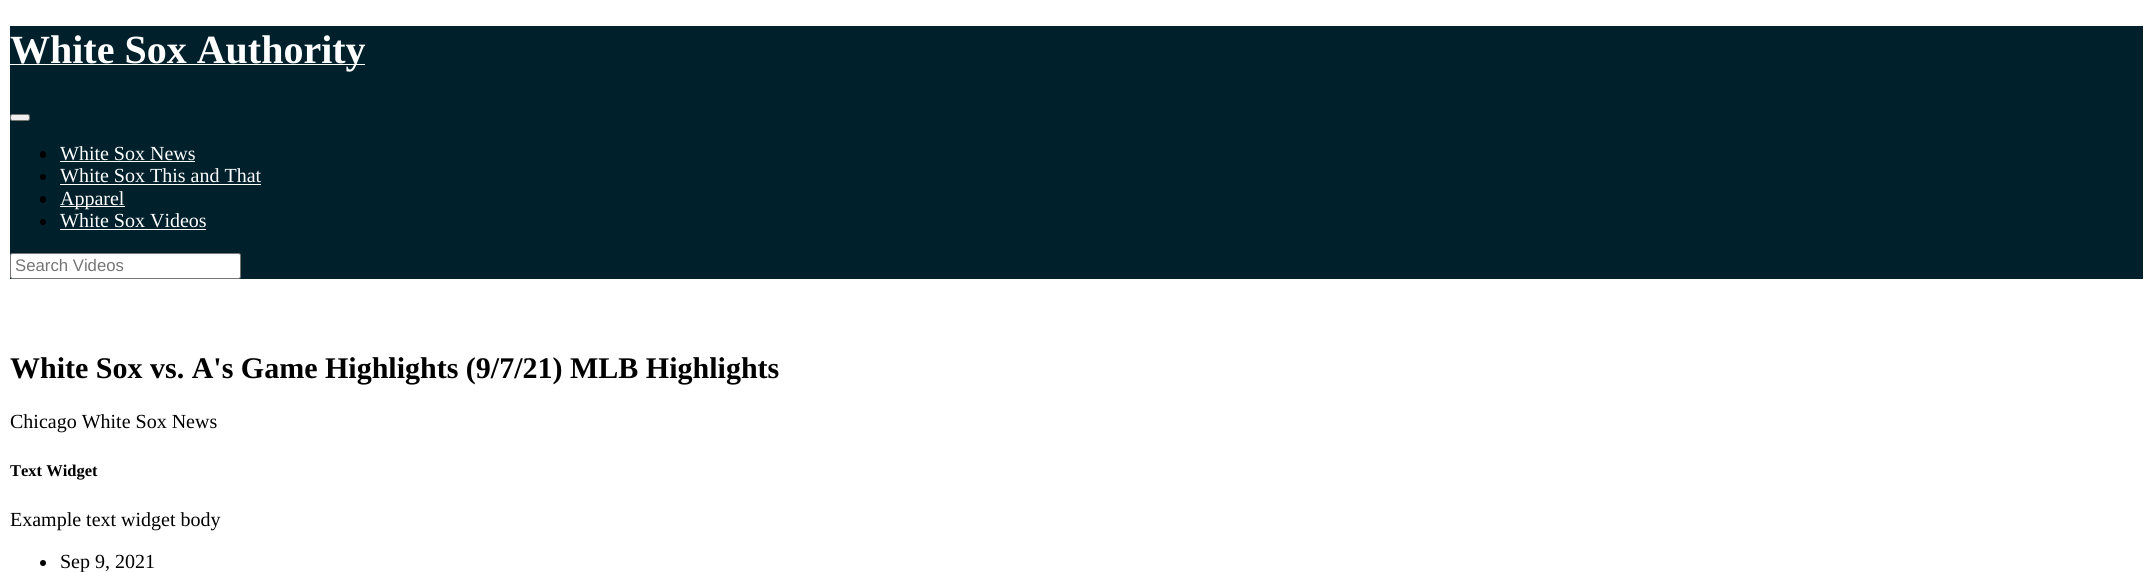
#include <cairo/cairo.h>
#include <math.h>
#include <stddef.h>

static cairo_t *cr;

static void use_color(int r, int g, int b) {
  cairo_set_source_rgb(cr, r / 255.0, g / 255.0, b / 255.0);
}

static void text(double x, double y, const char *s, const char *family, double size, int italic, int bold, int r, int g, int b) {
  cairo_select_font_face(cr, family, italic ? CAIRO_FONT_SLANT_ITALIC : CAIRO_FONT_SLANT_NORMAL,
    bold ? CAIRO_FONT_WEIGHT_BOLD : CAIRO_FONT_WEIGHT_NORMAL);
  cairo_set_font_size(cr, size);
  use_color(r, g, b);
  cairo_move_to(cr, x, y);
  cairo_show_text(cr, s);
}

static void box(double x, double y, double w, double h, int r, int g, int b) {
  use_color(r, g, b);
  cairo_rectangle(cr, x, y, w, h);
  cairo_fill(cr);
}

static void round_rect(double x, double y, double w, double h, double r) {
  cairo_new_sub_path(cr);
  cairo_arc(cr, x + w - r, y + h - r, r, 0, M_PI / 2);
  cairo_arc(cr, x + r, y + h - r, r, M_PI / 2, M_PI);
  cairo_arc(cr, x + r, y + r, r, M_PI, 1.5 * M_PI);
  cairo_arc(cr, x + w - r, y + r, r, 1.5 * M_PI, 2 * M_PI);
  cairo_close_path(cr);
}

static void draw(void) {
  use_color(255, 255, 255);
  cairo_paint(cr);
  box(10, 26, 2133, 253, 0, 32, 44);
  box(10, 64, 355, 1, 255, 255, 255);
  use_color(239, 239, 239);
  round_rect(10.5, 114.5, 19, 6, 2);
  cairo_fill_preserve(cr);
  use_color(118, 118, 118);
  cairo_set_line_width(cr, 1);
  cairo_stroke(cr);
  use_color(0, 0, 0);
  round_rect(40, 151, 6, 7, 3);
  cairo_fill(cr);
  box(60, 161, 135, 1, 255, 255, 255);
  use_color(0, 0, 0);
  cairo_arc(cr, 43, 177, 3, 0, 2 * M_PI);
  cairo_fill(cr);
  box(60, 184, 201, 1, 255, 255, 255);
  use_color(0, 0, 0);
  round_rect(40, 196, 6, 7, 3);
  cairo_fill(cr);
  box(60, 206, 65, 1, 255, 255, 255);
  use_color(0, 0, 0);
  cairo_arc(cr, 43, 222, 3, 0, 2 * M_PI);
  cairo_fill(cr);
  box(60, 229, 146, 1, 255, 255, 255);
  round_rect(10.5, 253.5, 230, 25, 2);
  cairo_fill_preserve(cr);
  use_color(118, 118, 118);
  cairo_stroke(cr);
  use_color(0, 0, 0);
  cairo_arc(cr, 43, 563, 3, 0, 2 * M_PI);
  cairo_fill(cr);
  text(10, 63, "White Sox Authority", "Liberation Serif", 40, 0, 1, 255, 255, 255);
  text(60, 160, "White Sox News", "Liberation Serif", 20, 0, 0, 255, 255, 255);
  text(60, 182, "White Sox This and That", "Liberation Serif", 20, 0, 0, 255, 255, 255);
  text(60, 205, "Apparel", "Liberation Serif", 20, 0, 0, 255, 255, 255);
  text(60, 227, "White Sox Videos", "Liberation Serif", 20, 0, 0, 255, 255, 255);
  text(15, 271, "Search Videos", "Liberation Sans", 16.75, 0, 0, 117, 117, 117);
  text(10, 378, "White Sox vs. A's Game Highlights (9/7/21) MLB Highlights", "Liberation Serif", 30, 0, 1, 0, 0, 0);
  text(10, 428, "Chicago White Sox News", "Liberation Serif", 20, 0, 0, 0, 0, 0);
  text(10, 476, "Text Widget", "Liberation Serif", 16.5, 0, 1, 0, 0, 0);
  text(10, 526, "Example text widget body", "Liberation Serif", 20, 0, 0, 0, 0, 0);
  text(60, 568, "Sep 9, 2021", "Liberation Serif", 20, 0, 0, 0, 0, 0);
}

int main(void) {
  cairo_surface_t *surface = cairo_image_surface_create(CAIRO_FORMAT_RGB24, 2152, 572);
  cr = cairo_create(surface);
  cairo_font_options_t *options = cairo_font_options_create();
  cairo_font_options_set_hint_metrics(options, CAIRO_HINT_METRICS_OFF);
  cairo_font_options_set_hint_style(options, CAIRO_HINT_STYLE_NONE);
  cairo_set_font_options(cr, options);
  cairo_set_miter_limit(cr, 4);
  draw();
  cairo_surface_write_to_png(surface, "out.png");
  cairo_font_options_destroy(options);
  cairo_destroy(cr);
  cairo_surface_destroy(surface);
  return 0;
}
